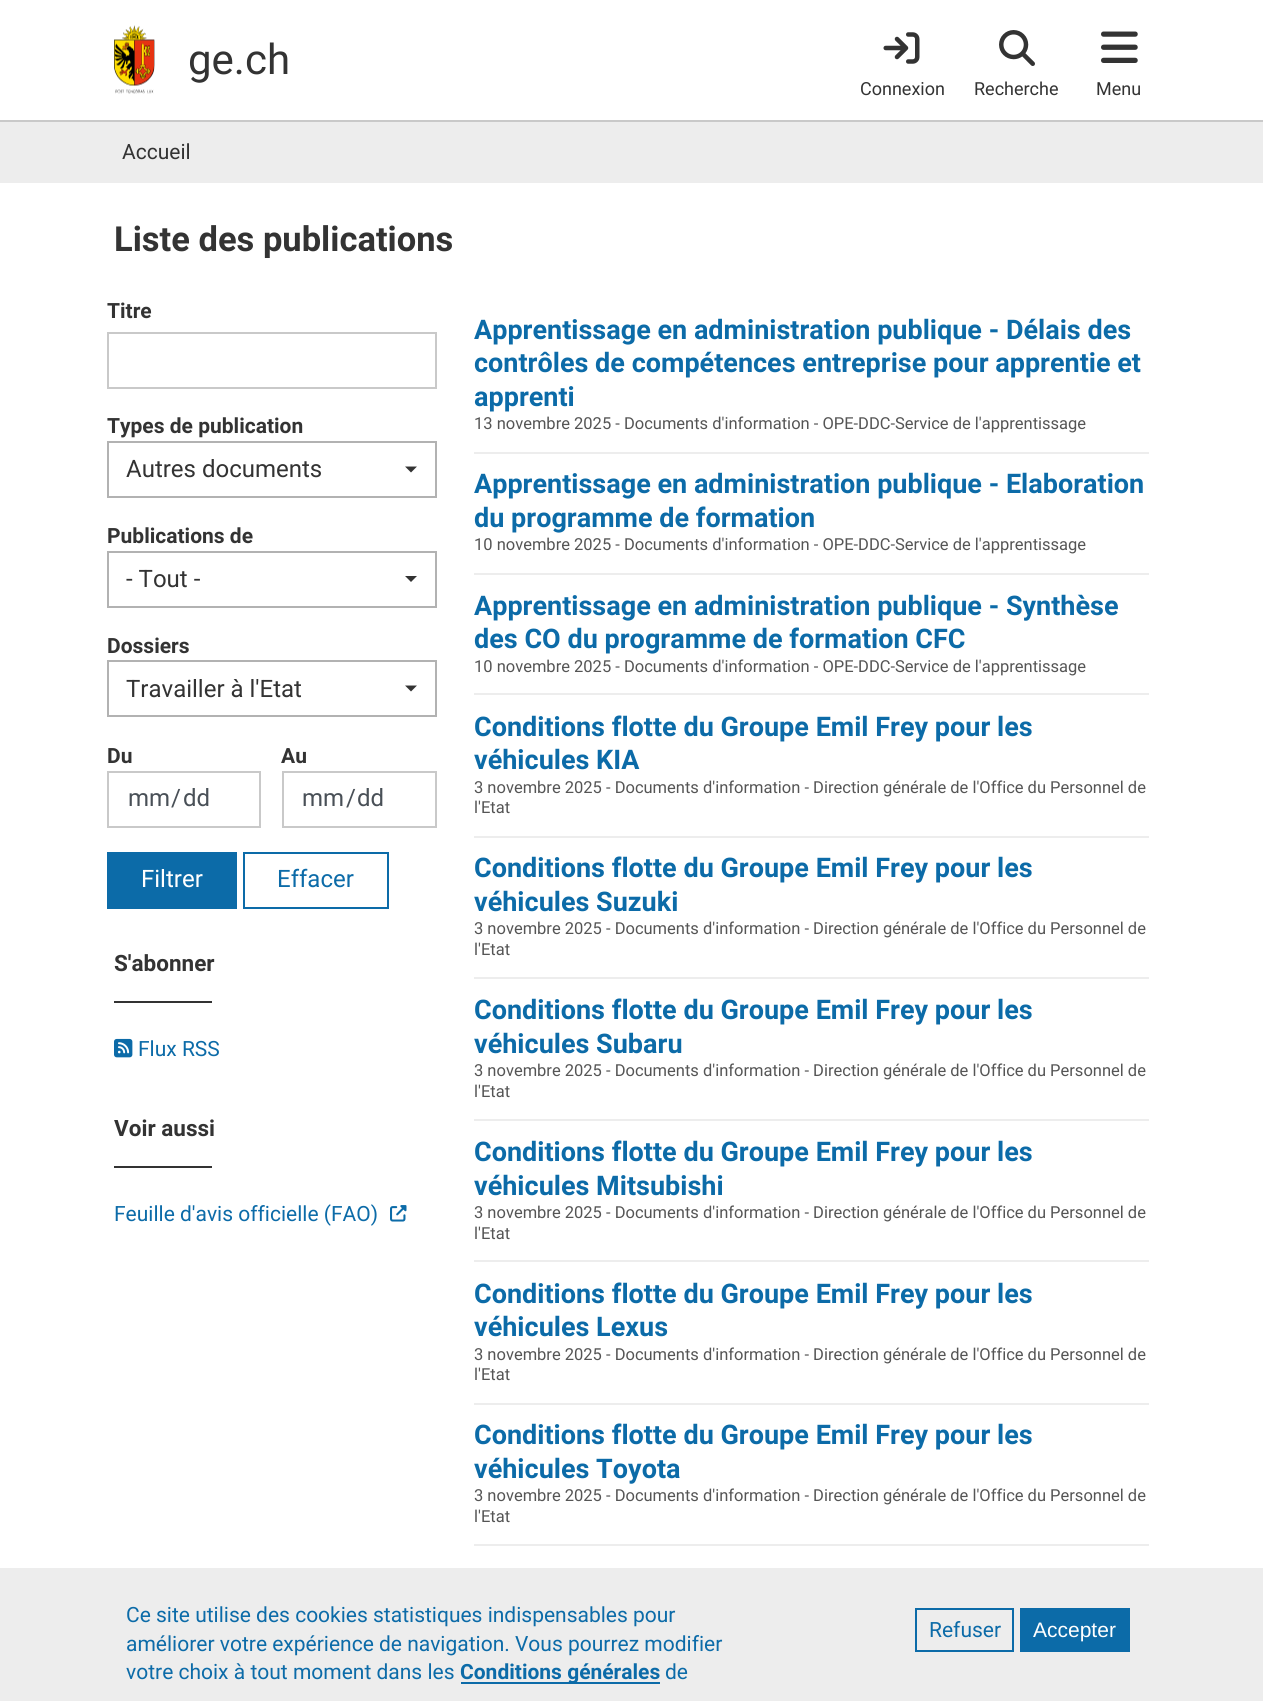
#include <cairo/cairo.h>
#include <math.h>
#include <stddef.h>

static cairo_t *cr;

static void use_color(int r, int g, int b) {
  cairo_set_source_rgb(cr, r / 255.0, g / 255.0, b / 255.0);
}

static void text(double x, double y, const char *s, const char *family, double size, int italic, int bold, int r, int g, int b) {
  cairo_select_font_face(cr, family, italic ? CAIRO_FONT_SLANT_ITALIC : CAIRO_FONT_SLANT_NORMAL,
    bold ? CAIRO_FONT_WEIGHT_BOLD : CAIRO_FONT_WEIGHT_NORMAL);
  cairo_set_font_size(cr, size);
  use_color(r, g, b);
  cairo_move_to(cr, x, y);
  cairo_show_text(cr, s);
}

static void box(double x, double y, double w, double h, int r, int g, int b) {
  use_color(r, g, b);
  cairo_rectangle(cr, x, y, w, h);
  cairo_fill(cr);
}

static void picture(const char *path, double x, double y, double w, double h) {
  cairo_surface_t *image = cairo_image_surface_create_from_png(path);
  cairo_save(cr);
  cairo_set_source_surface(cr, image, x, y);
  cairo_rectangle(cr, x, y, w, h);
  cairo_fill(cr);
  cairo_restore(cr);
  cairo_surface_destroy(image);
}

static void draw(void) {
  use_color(255, 255, 255);
  cairo_paint(cr);
  box(0, 120, 1263, 2, 201, 201, 201);
  picture("img_01.png", 114, 25, 41, 69);
  picture("img_02.png", 883, 32, 37, 32);
  picture("img_03.png", 999, 30, 36, 36);
  picture("img_04.png", 1101, 31, 37, 32);
  box(0, 122, 1263, 61, 237, 237, 237);
  cairo_rectangle(cr, 108, 333, 328, 55);
  use_color(201, 201, 201);
  cairo_stroke(cr);
  cairo_rectangle(cr, 108, 442, 328, 55);
  use_color(178, 178, 178);
  cairo_stroke(cr);
  use_color(51, 51, 51);
  cairo_new_path(cr);
  cairo_move_to(cr, 405, 466.5);
  cairo_line_to(cr, 417, 466.5);
  cairo_line_to(cr, 411, 472.5);
  cairo_close_path(cr);
  cairo_fill(cr);
  cairo_rectangle(cr, 108, 552, 328, 55);
  use_color(178, 178, 178);
  cairo_stroke(cr);
  use_color(51, 51, 51);
  cairo_new_path(cr);
  cairo_move_to(cr, 405, 576);
  cairo_line_to(cr, 417, 576);
  cairo_line_to(cr, 411, 582);
  cairo_close_path(cr);
  cairo_fill(cr);
  cairo_rectangle(cr, 108, 661, 328, 55);
  use_color(178, 178, 178);
  cairo_stroke(cr);
  use_color(51, 51, 51);
  cairo_new_path(cr);
  cairo_move_to(cr, 405, 685.5);
  cairo_line_to(cr, 417, 685.5);
  cairo_line_to(cr, 411, 691.5);
  cairo_close_path(cr);
  cairo_fill(cr);
  cairo_rectangle(cr, 108, 772, 152, 55);
  use_color(201, 201, 201);
  cairo_stroke(cr);
  cairo_rectangle(cr, 283, 772, 153, 55);
  cairo_stroke(cr);
  box(107, 852, 130, 57, 12, 107, 168);
  cairo_rectangle(cr, 244, 853, 144, 55);
  cairo_stroke(cr);
  box(114, 1001, 98, 2, 51, 51, 51);
  picture("img_05.png", 114, 1038, 19, 20);
  box(114, 1166, 98, 2, 51, 51, 51);
  picture("img_06.png", 390, 1205, 17, 17);
  box(474, 452, 675, 2, 237, 237, 237);
  box(474, 573, 675, 2, 237, 237, 237);
  box(474, 693, 675, 2, 237, 237, 237);
  box(474, 836, 675, 2, 237, 237, 237);
  box(474, 977, 675, 2, 237, 237, 237);
  box(474, 1119, 675, 2, 237, 237, 237);
  box(474, 1260, 675, 2, 237, 237, 237);
  box(474, 1403, 675, 2, 237, 237, 237);
  box(474, 1544, 675, 2, 237, 237, 237);
  box(0, 1568, 1263, 133, 237, 237, 237);
  box(461, 1682, 199, 2, 12, 107, 168);
  cairo_rectangle(cr, 916, 1609, 97, 42);
  cairo_stroke(cr);
  box(1020, 1608, 110, 44, 12, 107, 168);
  text(188, 74, "ge.ch", "Roboto", 42, 0, 0, 51, 51, 51);
  text(860, 95, "Connexion", "Roboto", 18, 0, 0, 51, 51, 51);
  text(974, 95, "Recherche", "Roboto", 18, 0, 0, 51, 51, 51);
  text(1096, 95, "Menu", "Roboto", 18, 0, 0, 51, 51, 51);
  text(122, 159, "Accueil", "Roboto", 21, 0, 0, 51, 51, 51);
  text(114, 251, "Liste des publications", "Roboto", 34.5, 0, 1, 51, 51, 51);
  text(107, 318, "Titre", "Roboto", 21, 0, 1, 51, 51, 51);
  text(107, 433, "Types de publication", "Roboto", 21, 0, 1, 51, 51, 51);
  text(126, 477, "Autres documents", "Roboto", 24, 0, 0, 51, 51, 51);
  text(107, 543, "Publications de", "Roboto", 21, 0, 1, 51, 51, 51);
  text(126, 587, "- Tout -", "Roboto", 24, 0, 0, 51, 51, 51);
  text(107, 653, "Dossiers", "Roboto", 21, 0, 1, 51, 51, 51);
  text(126, 697, "Travailler à l'Etat", "Roboto", 24, 0, 0, 51, 51, 51);
  text(107, 763, "Du", "Roboto", 21, 0, 1, 51, 51, 51);
  text(128, 806, "mm", "Roboto", 24, 0, 0, 73, 80, 87);
  text(171, 806, "/", "Roboto", 24, 0, 0, 73, 80, 87);
  text(183, 806, "dd", "Roboto", 24, 0, 0, 73, 80, 87);
  text(281, 763, "Au", "Roboto", 21, 0, 1, 51, 51, 51);
  text(302, 806, "mm", "Roboto", 24, 0, 0, 73, 80, 87);
  text(346, 806, "/", "Roboto", 24, 0, 0, 73, 80, 87);
  text(357, 806, "dd", "Roboto", 24, 0, 0, 73, 80, 87);
  text(141, 887, "Filtrer", "Roboto", 24, 0, 0, 255, 255, 255);
  text(277, 887, "Effacer", "Roboto", 24, 0, 0, 12, 107, 168);
  text(114, 971, "S'abonner", "Roboto", 22.5, 0, 1, 51, 51, 51);
  text(138, 1056, "Flux RSS", "Roboto", 21, 0, 0, 12, 107, 168);
  text(114, 1136, "Voir aussi", "Roboto", 22.5, 0, 1, 51, 51, 51);
  text(114, 1221, "Feuille d'avis officielle (FAO)", "Roboto", 21, 0, 0, 12, 107, 168);
  text(474, 339, "Apprentissage en administration publique - Délais des", "Roboto", 27, 0, 1, 12, 107, 168);
  text(474, 372, "contrôles de compétences entreprise pour apprentie et", "Roboto", 27, 0, 1, 12, 107, 168);
  text(474, 406, "apprenti", "Roboto", 27, 0, 1, 12, 107, 168);
  text(474, 429, "13 novembre 2025 - Documents d'information - OPE-DDC-Service de l'apprentissage", "Roboto", 16.5, 0, 0, 85, 85, 85);
  text(474, 493, "Apprentissage en administration publique - Elaboration", "Roboto", 27, 0, 1, 12, 107, 168);
  text(474, 527, "du programme de formation", "Roboto", 27, 0, 1, 12, 107, 168);
  text(474, 550, "10 novembre 2025 - Documents d'information - OPE-DDC-Service de l'apprentissage", "Roboto", 16.5, 0, 0, 85, 85, 85);
  text(474, 615, "Apprentissage en administration publique - Synthèse", "Roboto", 27, 0, 1, 12, 107, 168);
  text(474, 648, "des CO du programme de formation CFC", "Roboto", 27, 0, 1, 12, 107, 168);
  text(474, 672, "10 novembre 2025 - Documents d'information - OPE-DDC-Service de l'apprentissage", "Roboto", 16.5, 0, 0, 85, 85, 85);
  text(474, 736, "Conditions flotte du Groupe Emil Frey pour les", "Roboto", 27, 0, 1, 12, 107, 168);
  text(474, 769, "véhicules KIA", "Roboto", 27, 0, 1, 12, 107, 168);
  text(474, 793, "3 novembre 2025 - Documents d'information - Direction générale de l'Office du Personnel de", "Roboto", 16.5, 0, 0, 85, 85, 85);
  text(474, 813, "l'Etat", "Roboto", 16.5, 0, 0, 85, 85, 85);
  text(474, 877, "Conditions flotte du Groupe Emil Frey pour les", "Roboto", 27, 0, 1, 12, 107, 168);
  text(474, 911, "véhicules Suzuki", "Roboto", 27, 0, 1, 12, 107, 168);
  text(474, 934, "3 novembre 2025 - Documents d'information - Direction générale de l'Office du Personnel de", "Roboto", 16.5, 0, 0, 85, 85, 85);
  text(474, 955, "l'Etat", "Roboto", 16.5, 0, 0, 85, 85, 85);
  text(474, 1019, "Conditions flotte du Groupe Emil Frey pour les", "Roboto", 27, 0, 1, 12, 107, 168);
  text(474, 1053, "véhicules Subaru", "Roboto", 27, 0, 1, 12, 107, 168);
  text(474, 1076, "3 novembre 2025 - Documents d'information - Direction générale de l'Office du Personnel de", "Roboto", 16.5, 0, 0, 85, 85, 85);
  text(474, 1097, "l'Etat", "Roboto", 16.5, 0, 0, 85, 85, 85);
  text(474, 1161, "Conditions flotte du Groupe Emil Frey pour les", "Roboto", 27, 0, 1, 12, 107, 168);
  text(474, 1195, "véhicules Mitsubishi", "Roboto", 27, 0, 1, 12, 107, 168);
  text(474, 1218, "3 novembre 2025 - Documents d'information - Direction générale de l'Office du Personnel de", "Roboto", 16.5, 0, 0, 85, 85, 85);
  text(474, 1239, "l'Etat", "Roboto", 16.5, 0, 0, 85, 85, 85);
  text(474, 1303, "Conditions flotte du Groupe Emil Frey pour les", "Roboto", 27, 0, 1, 12, 107, 168);
  text(474, 1336, "véhicules Lexus", "Roboto", 27, 0, 1, 12, 107, 168);
  text(474, 1360, "3 novembre 2025 - Documents d'information - Direction générale de l'Office du Personnel de", "Roboto", 16.5, 0, 0, 85, 85, 85);
  text(474, 1380, "l'Etat", "Roboto", 16.5, 0, 0, 85, 85, 85);
  text(474, 1444, "Conditions flotte du Groupe Emil Frey pour les", "Roboto", 27, 0, 1, 12, 107, 168);
  text(474, 1478, "véhicules Toyota", "Roboto", 27, 0, 1, 12, 107, 168);
  text(474, 1501, "3 novembre 2025 - Documents d'information - Direction générale de l'Office du Personnel de", "Roboto", 16.5, 0, 0, 85, 85, 85);
  text(474, 1522, "l'Etat", "Roboto", 16.5, 0, 0, 85, 85, 85);
  text(126, 1622, "Ce site utilise des cookies statistiques indispensables pour", "Roboto", 21, 0, 0, 12, 107, 168);
  text(126, 1651, "améliorer votre expérience de navigation. Vous pourrez modifier", "Roboto", 21, 0, 0, 12, 107, 168);
  text(126, 1679, "votre choix à tout moment dans les", "Roboto", 21, 0, 0, 12, 107, 168);
  text(460, 1679, "Conditions générales", "Roboto", 21, 0, 1, 12, 107, 168);
  text(665, 1679, "de", "Roboto", 21, 0, 0, 12, 107, 168);
  text(929, 1637, "Refuser", "Roboto", 21, 0, 0, 12, 107, 168);
  text(1033, 1637, "Accepter", "Liberation Sans", 21, 0, 0, 255, 255, 255);
}

int main(void) {
  cairo_surface_t *surface = cairo_image_surface_create(CAIRO_FORMAT_RGB24, 1263, 1701);
  cr = cairo_create(surface);
  cairo_font_options_t *options = cairo_font_options_create();
  cairo_font_options_set_hint_metrics(options, CAIRO_HINT_METRICS_OFF);
  cairo_font_options_set_hint_style(options, CAIRO_HINT_STYLE_NONE);
  cairo_set_font_options(cr, options);
  cairo_set_miter_limit(cr, 4);
  draw();
  cairo_surface_write_to_png(surface, "out.png");
  cairo_font_options_destroy(options);
  cairo_destroy(cr);
  cairo_surface_destroy(surface);
  return 0;
}
